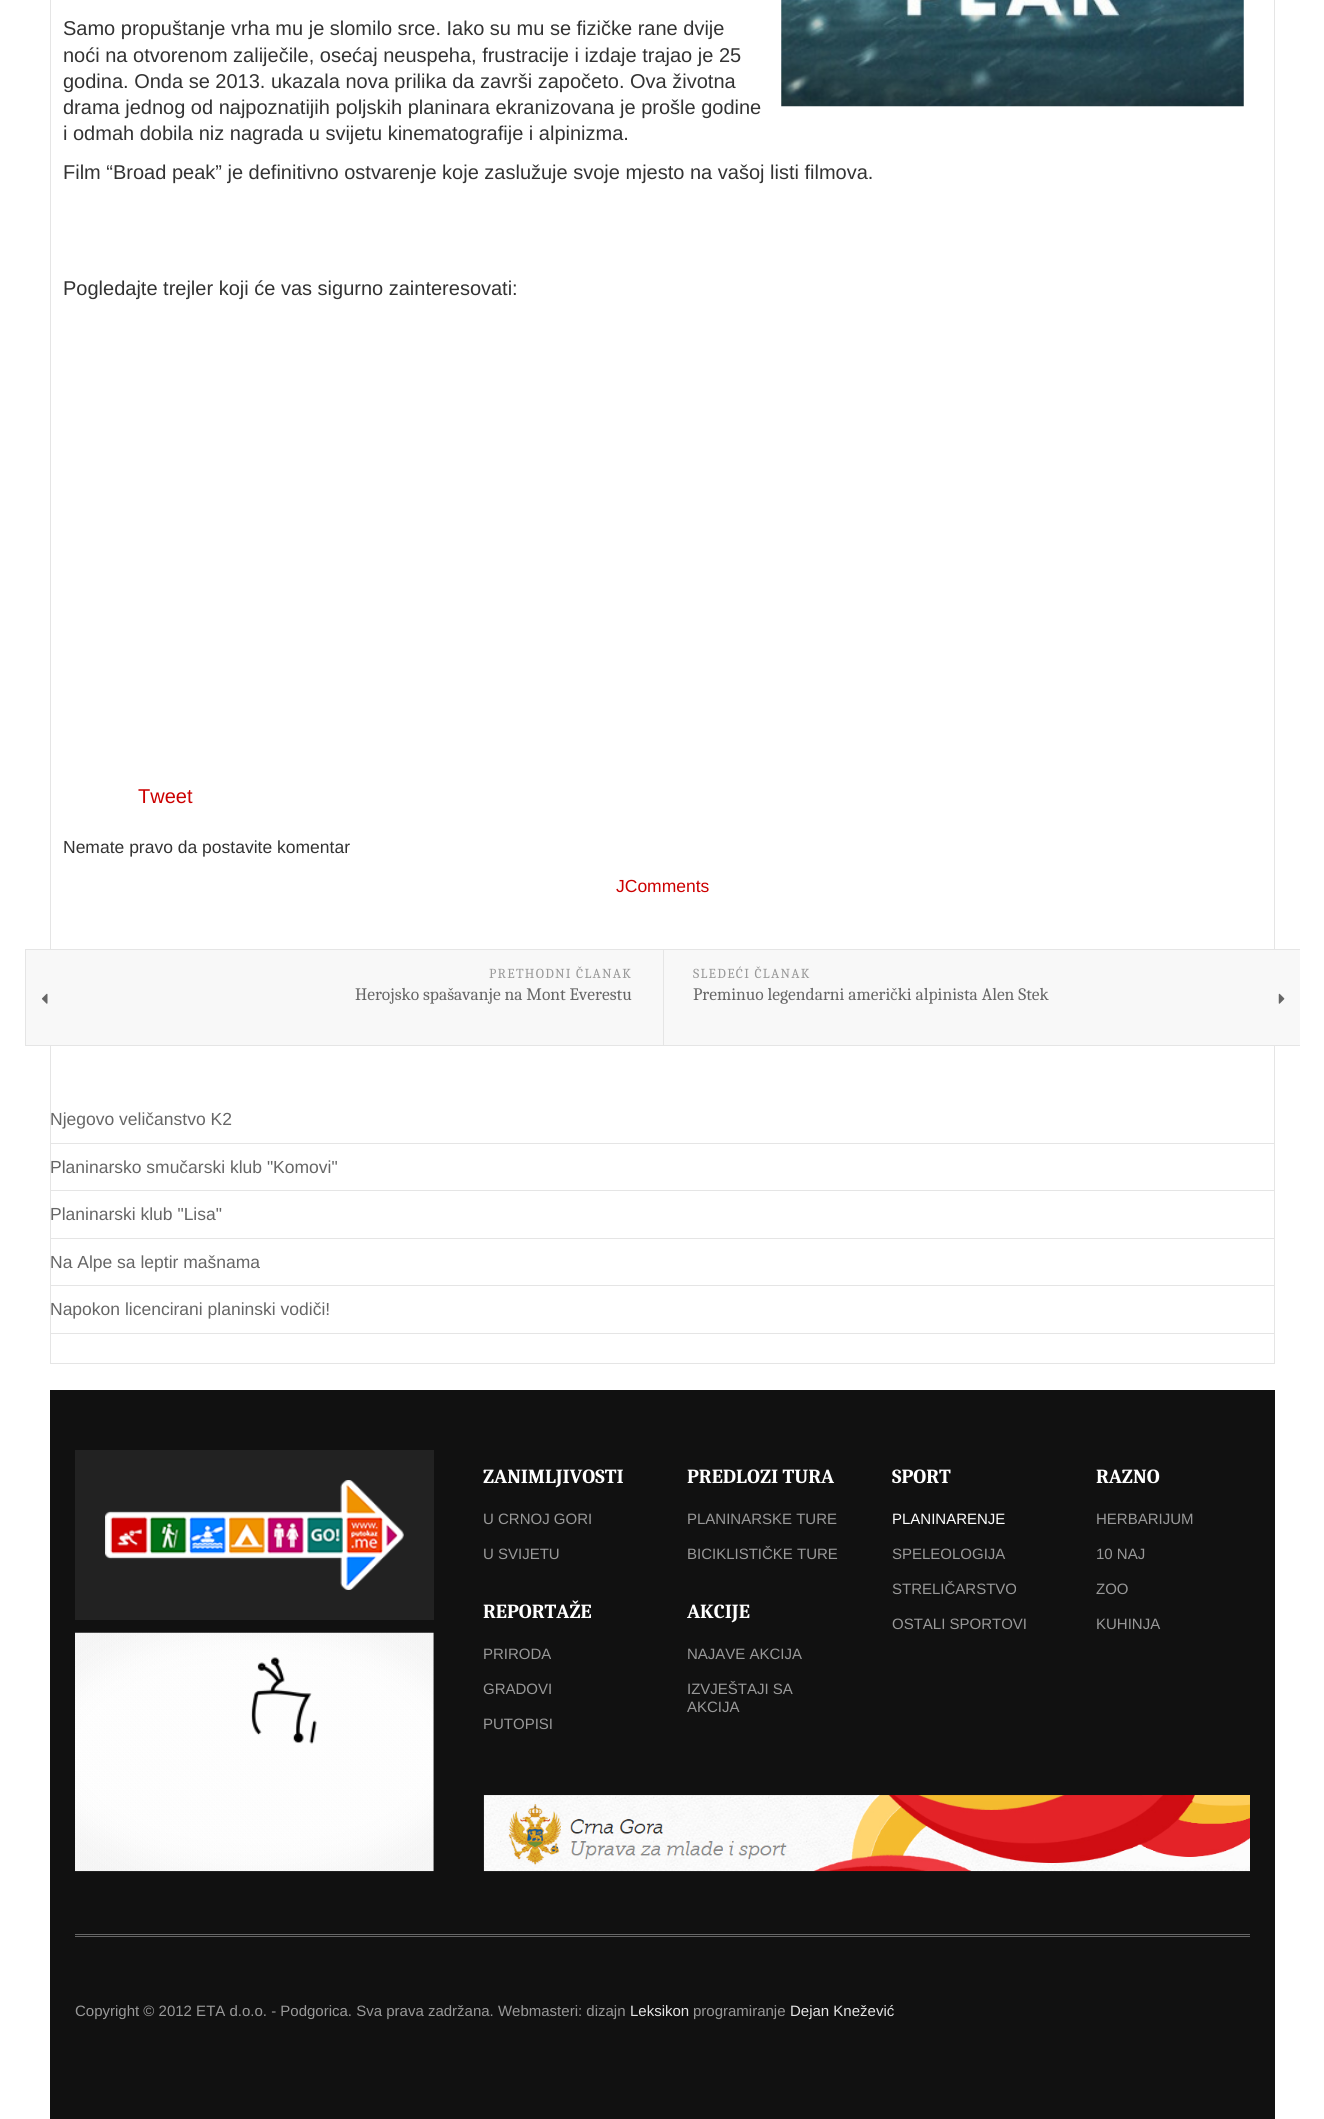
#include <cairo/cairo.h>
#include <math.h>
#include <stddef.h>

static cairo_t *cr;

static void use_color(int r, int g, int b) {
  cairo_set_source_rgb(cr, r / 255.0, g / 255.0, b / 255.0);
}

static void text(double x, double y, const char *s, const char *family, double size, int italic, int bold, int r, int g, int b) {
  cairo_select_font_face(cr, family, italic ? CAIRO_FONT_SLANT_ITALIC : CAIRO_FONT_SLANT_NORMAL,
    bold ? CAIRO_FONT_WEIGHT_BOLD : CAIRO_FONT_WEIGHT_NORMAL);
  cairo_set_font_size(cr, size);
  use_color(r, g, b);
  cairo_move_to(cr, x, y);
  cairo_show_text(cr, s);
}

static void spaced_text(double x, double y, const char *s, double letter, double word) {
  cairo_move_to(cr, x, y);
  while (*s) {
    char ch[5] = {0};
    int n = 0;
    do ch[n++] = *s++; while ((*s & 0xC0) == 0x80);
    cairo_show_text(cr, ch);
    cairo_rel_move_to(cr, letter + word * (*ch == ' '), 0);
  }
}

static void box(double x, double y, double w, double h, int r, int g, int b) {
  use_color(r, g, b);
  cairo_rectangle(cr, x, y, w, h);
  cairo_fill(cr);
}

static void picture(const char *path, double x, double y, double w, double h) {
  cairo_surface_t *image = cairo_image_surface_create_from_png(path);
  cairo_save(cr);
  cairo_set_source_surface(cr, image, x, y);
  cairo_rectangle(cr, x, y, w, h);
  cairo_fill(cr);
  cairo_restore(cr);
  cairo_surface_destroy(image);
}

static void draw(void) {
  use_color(255, 255, 255);
  cairo_paint(cr);
  cairo_rectangle(cr, 50.5, -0.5, 1224, 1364);
  use_color(229, 229, 229);
  cairo_set_line_width(cr, 1);
  cairo_stroke(cr);
  picture("img_01.png", 781, 0, 463, 107);
  box(25, 949, 1275, 1, 229, 229, 229);
  box(25, 1045, 1275, 1, 229, 229, 229);
  box(25, 949, 1, 97, 229, 229, 229);
  box(663, 950, 1, 95, 229, 229, 229);
  box(26, 950, 637, 95, 248, 248, 248);
  picture("img_02.png", 41, 993, 7, 11);
  box(664, 950, 636, 95, 248, 248, 248);
  picture("img_03.png", 1278, 993, 7, 11);
  box(50, 1143, 1225, 1, 229, 229, 229);
  box(50, 1190, 1225, 1, 229, 229, 229);
  box(50, 1238, 1225, 1, 229, 229, 229);
  box(50, 1285, 1225, 1, 229, 229, 229);
  box(50, 1333, 1225, 1, 229, 229, 229);
  box(50, 1390, 1225, 729, 17, 17, 17);
  box(75, 1450, 359, 170, 34, 34, 34);
  picture("img_04.png", 105, 1480, 299, 110);
  picture("img_05.png", 75, 1632, 359, 240);
  picture("img_06.png", 483, 1795, 767, 77);
  box(75, 1934, 1175, 1, 102, 102, 102);
  box(75, 1936, 1175, 1, 102, 102, 102);
  text(63, 35, "Samo propuštanje vrha mu je slomilo srce. Iako su mu se fizičke rane dvije", "Liberation Sans", 20, 0, 0, 51, 51, 51);
  text(63, 62, "noći na otvorenom zaliječile, osećaj neuspeha, frustracije i izdaje trajao je 25", "Liberation Sans", 20, 0, 0, 51, 51, 51);
  text(63, 88, "godina. Onda se 2013. ukazala nova prilika da završi započeto. Ova životna", "Liberation Sans", 20, 0, 0, 51, 51, 51);
  text(63, 114, "drama jednog od najpoznatijih poljskih planinara ekranizovana je prošle godine", "Liberation Sans", 20, 0, 0, 51, 51, 51);
  text(63, 140, "i odmah dobila niz nagrada u svijetu kinematografije i alpinizma.", "Liberation Sans", 20, 0, 0, 51, 51, 51);
  text(63, 179, "Film “Broad peak” je definitivno ostvarenje koje zaslužuje svoje mjesto na vašoj listi filmova.", "Liberation Sans", 20, 0, 0, 51, 51, 51);
  text(63, 295, "Pogledajte trejler koji će vas sigurno zainteresovati:", "Liberation Sans", 20, 0, 0, 51, 51, 51);
  text(138, 803, "Tweet", "Liberation Sans", 20, 0, 0, 204, 0, 0);
  text(63, 853, "Nemate pravo da postavite komentar", "Liberation Sans", 17.5, 0, 0, 51, 51, 51);
  text(616, 892, "JComments", "Liberation Sans", 17.5, 0, 0, 204, 0, 0);
  cairo_select_font_face(cr, "Caladea", CAIRO_FONT_SLANT_NORMAL, CAIRO_FONT_WEIGHT_NORMAL);
  cairo_set_font_size(cr, 13.75);
  use_color(153, 153, 153);
  spaced_text(489, 978, "PRETHODNI ČLANAK", 1.25, 0);
  text(355, 1000, "Herojsko spašavanje na Mont Everestu", "Caladea", 17.5, 0, 0, 102, 102, 102);
  cairo_set_font_size(cr, 13.75);
  use_color(153, 153, 153);
  spaced_text(693, 978, "SLEDEĆI ČLANAK", 1.25, 0);
  text(693, 1000, "Preminuo legendarni američki alpinista Alen Stek", "Caladea", 17.5, 0, 0, 102, 102, 102);
  text(50, 1125, "Njegovo veličanstvo K2", "Liberation Sans", 17.5, 0, 0, 102, 102, 102);
  text(50, 1173, "Planinarsko smučarski klub \"Komovi\"", "Liberation Sans", 17.5, 0, 0, 102, 102, 102);
  text(50, 1220, "Planinarski klub \"Lisa\"", "Liberation Sans", 17.5, 0, 0, 102, 102, 102);
  text(50, 1268, "Na Alpe sa leptir mašnama", "Liberation Sans", 17.5, 0, 0, 102, 102, 102);
  text(50, 1315, "Napokon licencirani planinski vodiči!", "Liberation Sans", 17.5, 0, 0, 102, 102, 102);
  text(483, 1483, "ZANIMLJIVOSTI", "Caladea", 20, 0, 1, 255, 255, 255);
  text(483, 1524, "U CRNOJ GORI", "Liberation Sans", 15, 0, 0, 153, 153, 153);
  text(483, 1559, "U SVIJETU", "Liberation Sans", 15, 0, 0, 153, 153, 153);
  text(483, 1618, "REPORTAŽE", "Caladea", 20, 0, 1, 255, 255, 255);
  text(483, 1659, "PRIRODA", "Liberation Sans", 15, 0, 0, 153, 153, 153);
  text(483, 1694, "GRADOVI", "Liberation Sans", 15, 0, 0, 153, 153, 153);
  text(483, 1729, "PUTOPISI", "Liberation Sans", 15, 0, 0, 153, 153, 153);
  text(687, 1483, "PREDLOZI TURA", "Caladea", 20, 0, 1, 255, 255, 255);
  text(687, 1524, "PLANINARSKE TURE", "Liberation Sans", 15, 0, 0, 153, 153, 153);
  text(687, 1559, "BICIKLISTIČKE TURE", "Liberation Sans", 15, 0, 0, 153, 153, 153);
  text(687, 1618, "AKCIJE", "Caladea", 20, 0, 1, 255, 255, 255);
  text(687, 1659, "NAJAVE AKCIJA", "Liberation Sans", 15, 0, 0, 153, 153, 153);
  text(687, 1694, "IZVJEŠTAJI SA", "Liberation Sans", 15, 0, 0, 153, 153, 153);
  text(687, 1712, "AKCIJA", "Liberation Sans", 15, 0, 0, 153, 153, 153);
  text(892, 1483, "SPORT", "Caladea", 20, 0, 1, 255, 255, 255);
  text(892, 1524, "PLANINARENJE", "Liberation Sans", 15, 0, 0, 255, 255, 255);
  text(892, 1559, "SPELEOLOGIJA", "Liberation Sans", 15, 0, 0, 153, 153, 153);
  text(892, 1594, "STRELIČARSTVO", "Liberation Sans", 15, 0, 0, 153, 153, 153);
  text(892, 1629, "OSTALI SPORTOVI", "Liberation Sans", 15, 0, 0, 153, 153, 153);
  text(1096, 1483, "RAZNO", "Caladea", 20, 0, 1, 255, 255, 255);
  text(1096, 1524, "HERBARIJUM", "Liberation Sans", 15, 0, 0, 153, 153, 153);
  text(1096, 1559, "10 NAJ", "Liberation Sans", 15, 0, 0, 153, 153, 153);
  text(1096, 1594, "ZOO", "Liberation Sans", 15, 0, 0, 153, 153, 153);
  text(1096, 1629, "KUHINJA", "Liberation Sans", 15, 0, 0, 153, 153, 153);
  text(75, 2016, "Copyright © 2012 ETA d.o.o. - Podgorica. Sva prava zadržana. Webmasteri: dizajn", "Liberation Sans", 15, 0, 0, 153, 153, 153);
  text(630, 2016, "Leksikon", "Liberation Sans", 15, 0, 0, 229, 229, 229);
  text(693, 2016, "programiranje", "Liberation Sans", 15, 0, 0, 153, 153, 153);
  text(790, 2016, "Dejan Knežević", "Liberation Sans", 15, 0, 0, 229, 229, 229);
}

int main(void) {
  cairo_surface_t *surface = cairo_image_surface_create(CAIRO_FORMAT_RGB24, 1324, 2119);
  cr = cairo_create(surface);
  cairo_font_options_t *options = cairo_font_options_create();
  cairo_font_options_set_hint_metrics(options, CAIRO_HINT_METRICS_OFF);
  cairo_font_options_set_hint_style(options, CAIRO_HINT_STYLE_NONE);
  cairo_set_font_options(cr, options);
  cairo_set_miter_limit(cr, 4);
  draw();
  cairo_surface_write_to_png(surface, "out.png");
  cairo_font_options_destroy(options);
  cairo_destroy(cr);
  cairo_surface_destroy(surface);
  return 0;
}
